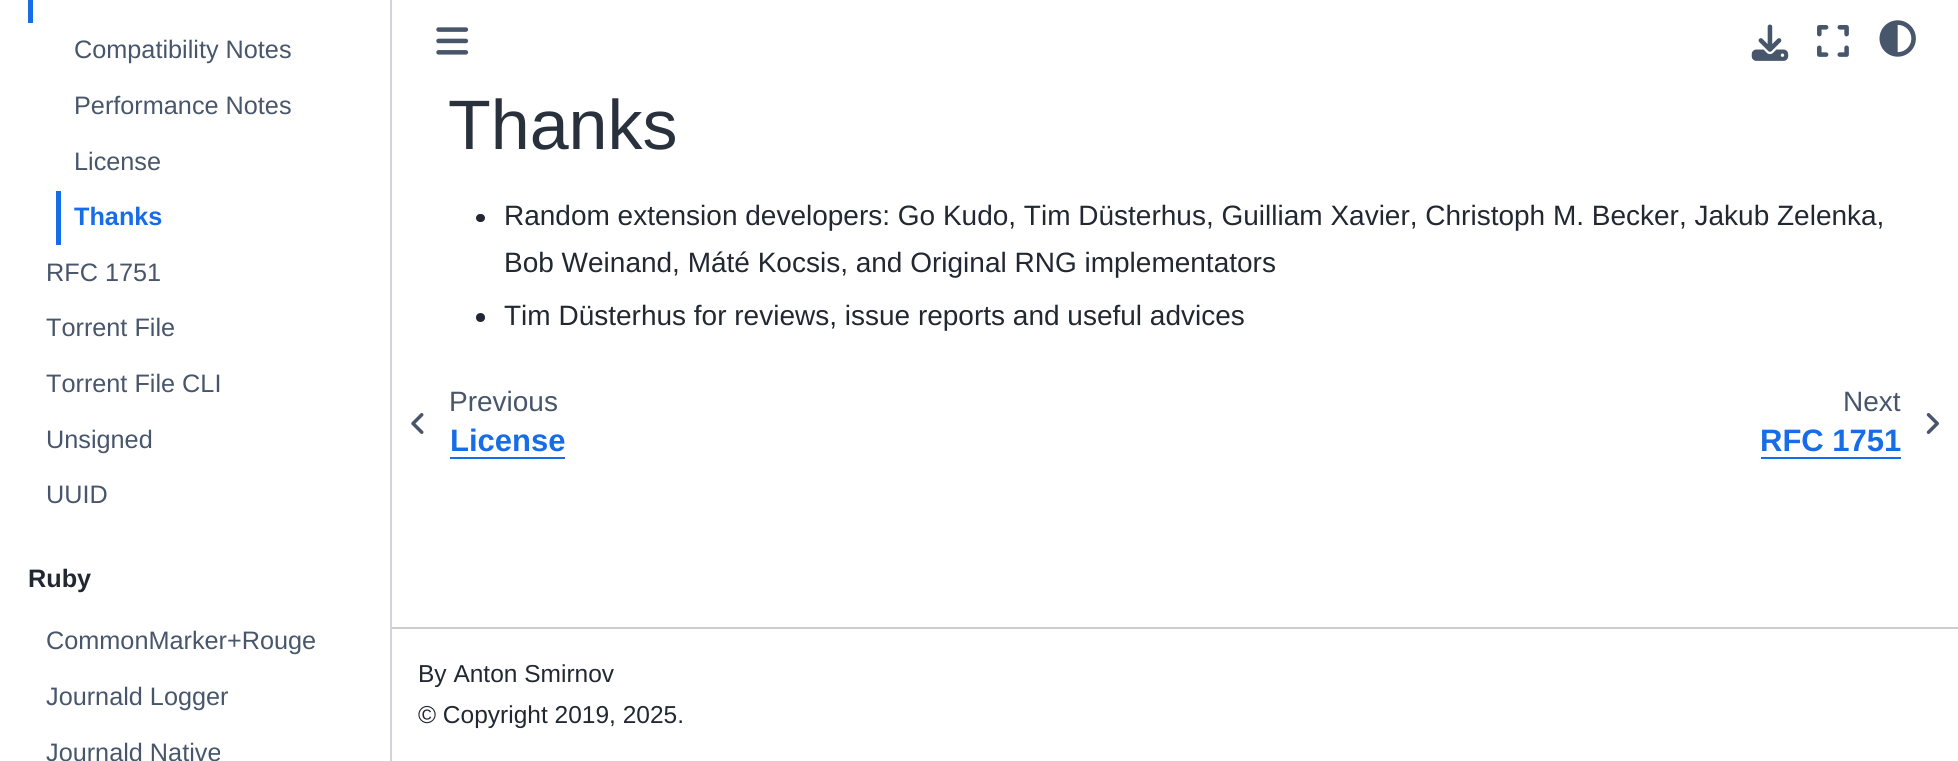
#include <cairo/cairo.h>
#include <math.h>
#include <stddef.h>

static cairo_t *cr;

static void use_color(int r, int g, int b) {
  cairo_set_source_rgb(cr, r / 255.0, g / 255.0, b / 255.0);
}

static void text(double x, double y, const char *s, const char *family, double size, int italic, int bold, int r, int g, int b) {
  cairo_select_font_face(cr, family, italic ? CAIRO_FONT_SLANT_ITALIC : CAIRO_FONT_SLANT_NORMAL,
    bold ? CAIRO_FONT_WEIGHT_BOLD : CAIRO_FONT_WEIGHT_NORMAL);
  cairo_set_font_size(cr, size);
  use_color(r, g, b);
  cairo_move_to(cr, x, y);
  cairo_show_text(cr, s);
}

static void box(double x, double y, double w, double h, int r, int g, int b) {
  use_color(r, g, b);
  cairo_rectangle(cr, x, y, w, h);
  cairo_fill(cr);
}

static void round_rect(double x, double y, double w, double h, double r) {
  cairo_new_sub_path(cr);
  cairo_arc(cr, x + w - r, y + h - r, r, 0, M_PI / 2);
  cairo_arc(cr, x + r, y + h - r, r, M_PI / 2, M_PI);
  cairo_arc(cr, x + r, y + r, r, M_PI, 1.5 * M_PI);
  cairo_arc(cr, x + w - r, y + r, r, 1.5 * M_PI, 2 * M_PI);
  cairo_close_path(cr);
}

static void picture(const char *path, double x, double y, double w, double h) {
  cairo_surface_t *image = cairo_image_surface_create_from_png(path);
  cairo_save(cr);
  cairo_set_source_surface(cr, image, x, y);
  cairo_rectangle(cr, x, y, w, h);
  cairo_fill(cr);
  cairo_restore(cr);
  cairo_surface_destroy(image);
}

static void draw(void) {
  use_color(255, 255, 255);
  cairo_paint(cr);
  box(390, 0, 2, 761, 209, 213, 218);
  box(28, 0, 5, 23, 23, 109, 232);
  box(56, 191, 5, 54, 23, 109, 232);
  picture("img_01.png", 436, 27, 33, 28);
  picture("img_02.png", 1751, 24, 38, 37);
  picture("img_03.png", 1817, 25, 32, 32);
  picture("img_04.png", 1879, 20, 37, 37);
  use_color(34, 40, 50);
  round_rect(476, 214, 9, 8, 4);
  cairo_fill(cr);
  cairo_arc(cr, 480.5, 317.5, 4.5, 0, 2 * M_PI);
  cairo_fill(cr);
  picture("img_05.png", 411, 413, 13, 21);
  box(450, 457, 115, 2, 23, 109, 232);
  box(1761, 457, 140, 2, 23, 109, 232);
  picture("img_06.png", 1926, 413, 13, 21);
  box(392, 627, 1566, 2, 204, 204, 204);
  text(74, 58, "Compatibility Notes", "Liberation Sans", 25.25, 0, 0, 72, 86, 107);
  text(74, 114, "Performance Notes", "Liberation Sans", 25.25, 0, 0, 72, 86, 107);
  text(74, 170, "License", "Liberation Sans", 25.25, 0, 0, 72, 86, 107);
  text(74, 225, "Thanks", "Liberation Sans", 25.25, 0, 1, 23, 109, 232);
  text(46, 281, "RFC 1751", "Liberation Sans", 25.25, 0, 0, 72, 86, 107);
  text(46, 336, "Torrent File", "Liberation Sans", 25.25, 0, 0, 72, 86, 107);
  text(46, 392, "Torrent File CLI", "Liberation Sans", 25.25, 0, 0, 72, 86, 107);
  text(46, 448, "Unsigned", "Liberation Sans", 25.25, 0, 0, 72, 86, 107);
  text(46, 503, "UUID", "Liberation Sans", 25.25, 0, 0, 72, 86, 107);
  text(28, 587, "Ruby", "Liberation Sans", 25.25, 0, 1, 34, 40, 50);
  text(46, 649, "CommonMarker+Rouge", "Liberation Sans", 25.25, 0, 0, 72, 86, 107);
  text(46, 705, "Journald Logger", "Liberation Sans", 25.25, 0, 0, 72, 86, 107);
  text(46, 761, "Journald Native", "Liberation Sans", 25.25, 0, 0, 72, 86, 107);
  text(448, 149, "Thanks", "Liberation Sans", 70, 0, 0, 41, 49, 61);
  text(504, 225, "Random extension developers: Go Kudo, Tim Düsterhus, Guilliam Xavier, Christoph M. Becker, Jakub Zelenka,", "Liberation Sans", 28, 0, 0, 34, 40, 50);
  text(504, 272, "Bob Weinand, Máté Kocsis, and Original RNG implementators", "Liberation Sans", 28, 0, 0, 34, 40, 50);
  text(504, 325, "Tim Düsterhus for reviews, issue reports and useful advices", "Liberation Sans", 28, 0, 0, 34, 40, 50);
  text(449, 411, "Previous", "Liberation Sans", 28, 0, 0, 72, 86, 107);
  text(450, 451, "License", "Liberation Sans", 31, 0, 1, 23, 109, 232);
  text(1843, 411, "Next", "Liberation Sans", 28, 0, 0, 72, 86, 107);
  text(1760, 451, "RFC 1751", "Liberation Sans", 31, 0, 1, 23, 109, 232);
  text(418, 682, "By Anton Smirnov", "Liberation Sans", 24.5, 0, 0, 34, 40, 50);
  text(418, 723, "© Copyright 2019, 2025.", "Liberation Sans", 24.5, 0, 0, 34, 40, 50);
}

int main(void) {
  cairo_surface_t *surface = cairo_image_surface_create(CAIRO_FORMAT_RGB24, 1958, 761);
  cr = cairo_create(surface);
  cairo_font_options_t *options = cairo_font_options_create();
  cairo_font_options_set_hint_metrics(options, CAIRO_HINT_METRICS_OFF);
  cairo_font_options_set_hint_style(options, CAIRO_HINT_STYLE_NONE);
  cairo_set_font_options(cr, options);
  cairo_set_miter_limit(cr, 4);
  draw();
  cairo_surface_write_to_png(surface, "out.png");
  cairo_font_options_destroy(options);
  cairo_destroy(cr);
  cairo_surface_destroy(surface);
  return 0;
}
